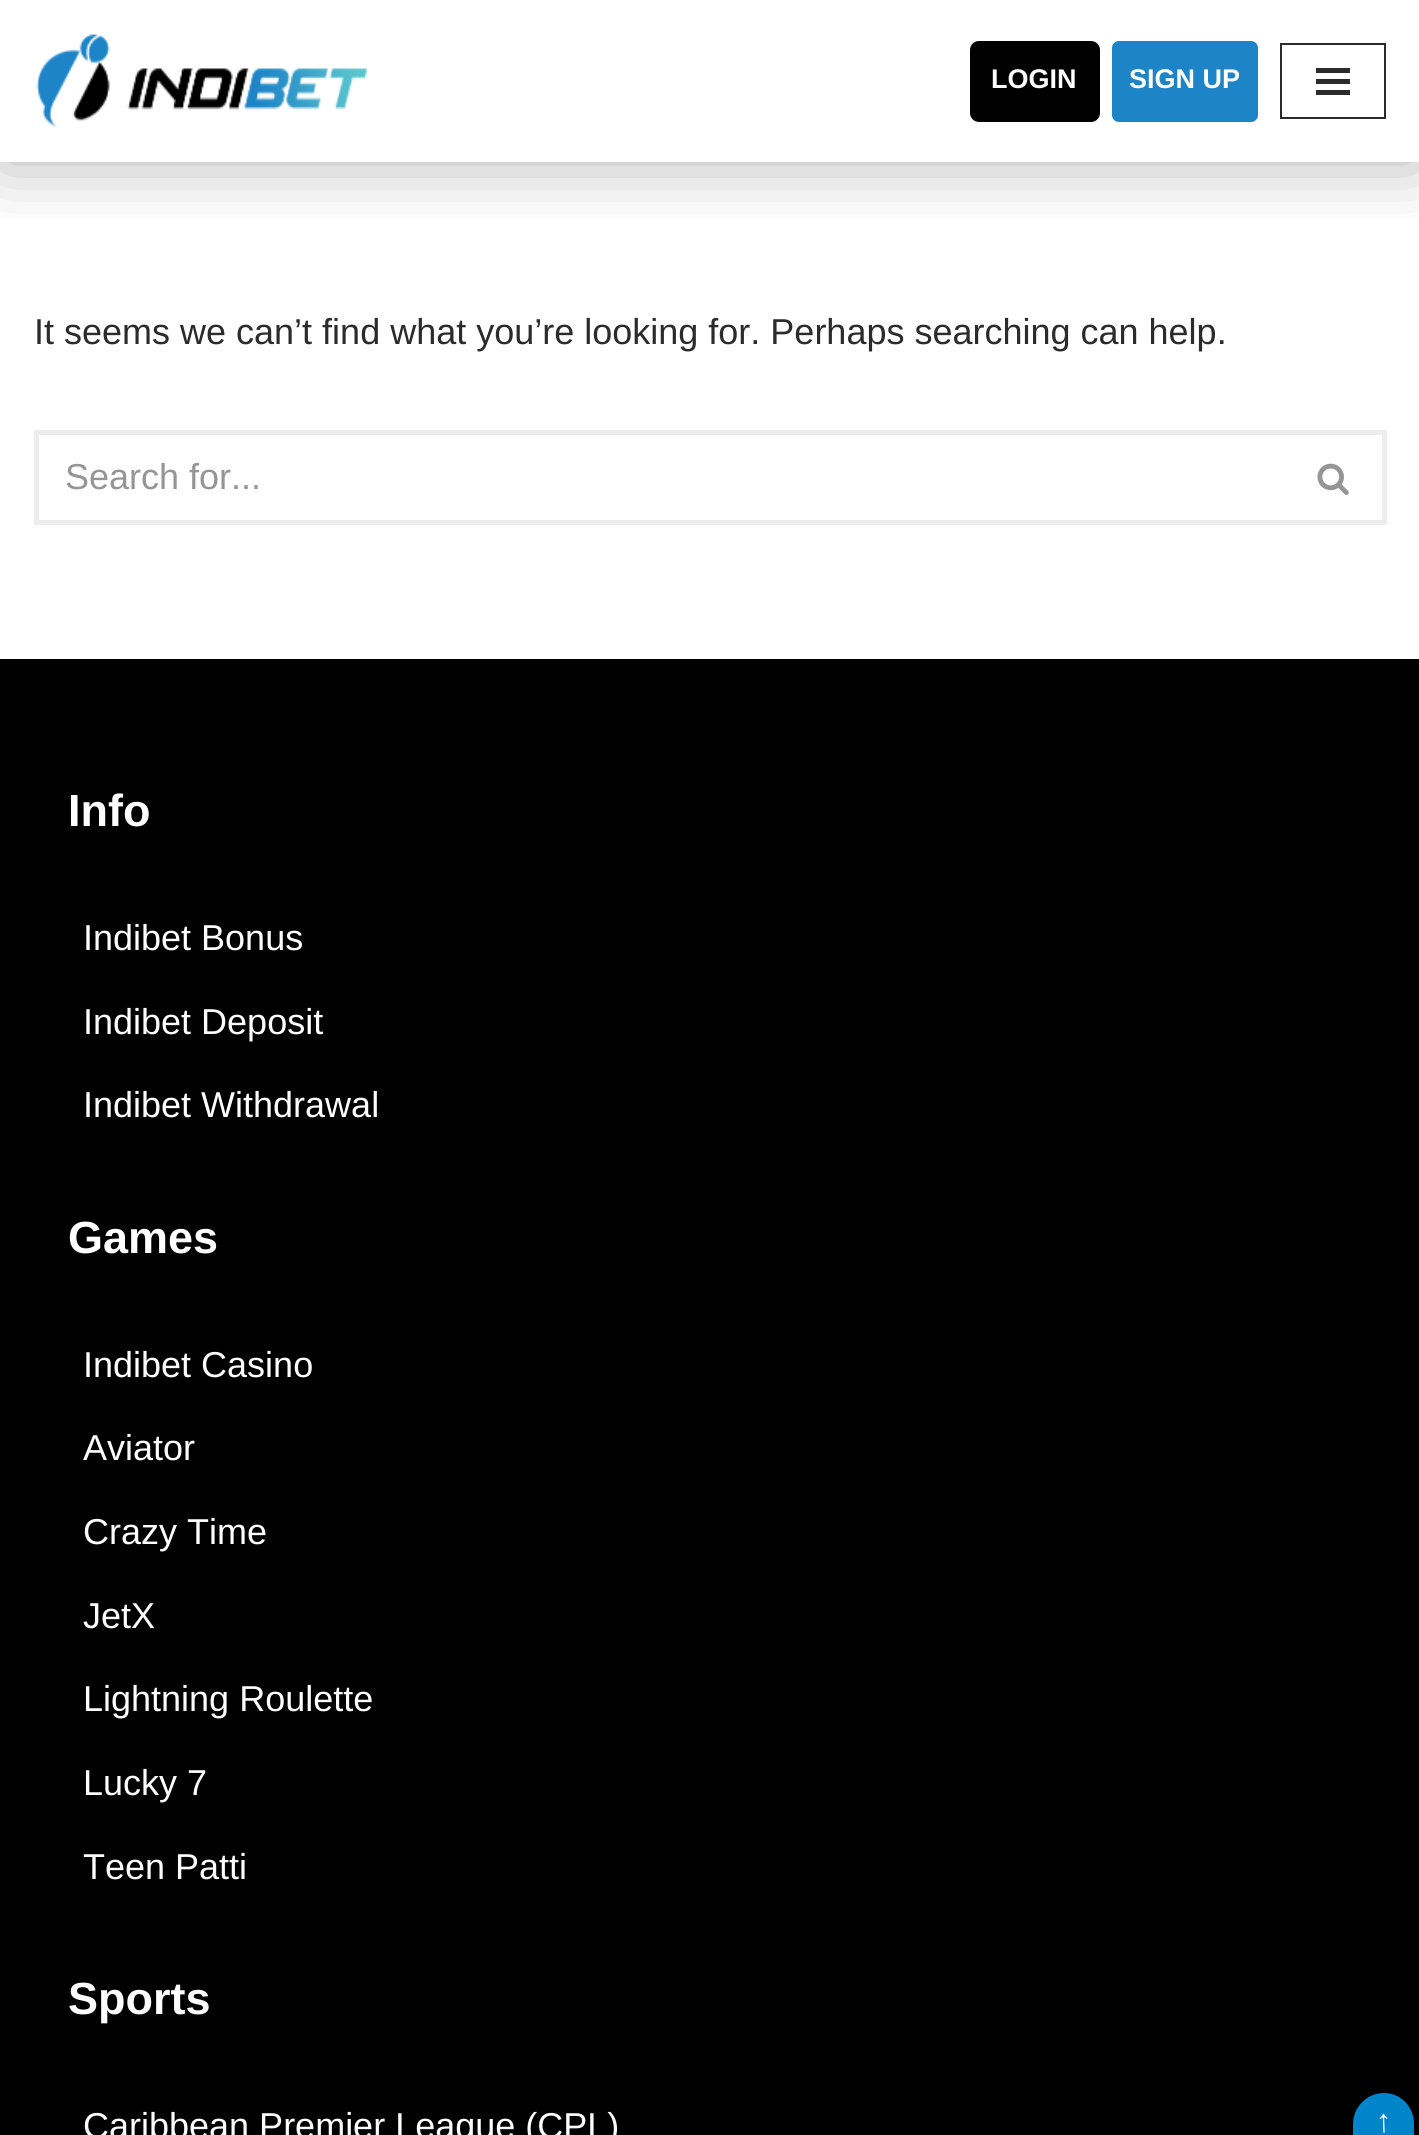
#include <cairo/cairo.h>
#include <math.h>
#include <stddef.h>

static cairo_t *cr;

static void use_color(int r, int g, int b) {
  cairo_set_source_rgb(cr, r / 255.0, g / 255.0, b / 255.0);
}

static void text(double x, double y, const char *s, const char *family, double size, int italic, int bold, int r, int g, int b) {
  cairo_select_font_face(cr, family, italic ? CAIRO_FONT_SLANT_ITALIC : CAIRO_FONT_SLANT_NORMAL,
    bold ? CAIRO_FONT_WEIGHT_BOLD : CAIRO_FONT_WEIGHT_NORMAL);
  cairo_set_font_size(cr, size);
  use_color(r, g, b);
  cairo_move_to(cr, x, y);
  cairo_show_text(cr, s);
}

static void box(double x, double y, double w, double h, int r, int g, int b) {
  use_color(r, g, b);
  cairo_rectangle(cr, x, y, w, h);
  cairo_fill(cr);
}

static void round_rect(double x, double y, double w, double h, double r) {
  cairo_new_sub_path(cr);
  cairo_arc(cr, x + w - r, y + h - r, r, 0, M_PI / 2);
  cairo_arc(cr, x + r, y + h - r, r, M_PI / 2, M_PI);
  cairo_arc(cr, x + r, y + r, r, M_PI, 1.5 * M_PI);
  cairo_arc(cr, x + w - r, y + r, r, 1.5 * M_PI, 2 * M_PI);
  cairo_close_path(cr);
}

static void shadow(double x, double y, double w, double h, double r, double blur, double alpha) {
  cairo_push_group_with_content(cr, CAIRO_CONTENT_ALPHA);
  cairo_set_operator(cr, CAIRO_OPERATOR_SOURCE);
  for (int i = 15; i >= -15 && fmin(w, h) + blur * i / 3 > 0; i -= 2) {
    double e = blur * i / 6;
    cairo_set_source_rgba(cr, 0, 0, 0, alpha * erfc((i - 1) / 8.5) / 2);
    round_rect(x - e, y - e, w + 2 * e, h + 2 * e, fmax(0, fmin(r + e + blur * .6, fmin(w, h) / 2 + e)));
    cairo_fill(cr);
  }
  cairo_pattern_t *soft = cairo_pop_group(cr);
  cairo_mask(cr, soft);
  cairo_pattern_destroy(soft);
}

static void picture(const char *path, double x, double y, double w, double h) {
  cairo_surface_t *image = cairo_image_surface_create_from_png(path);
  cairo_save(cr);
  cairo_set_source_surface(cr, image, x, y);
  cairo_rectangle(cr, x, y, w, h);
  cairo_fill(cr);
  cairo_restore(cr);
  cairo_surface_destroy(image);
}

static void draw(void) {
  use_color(255, 255, 255);
  cairo_paint(cr);
  cairo_save(cr);
  cairo_rectangle(cr, 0, 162, 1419, 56);
  cairo_clip(cr);
  use_color(34, 34, 34);
  shadow(0, -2, 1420, 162, 0, 36, 0.37);
  cairo_restore(cr);
  picture("img_01.png", 36, 34, 331, 94);
  use_color(0, 0, 0);
  round_rect(970, 41, 130, 81, 9);
  cairo_fill(cr);
  use_color(29, 132, 199);
  round_rect(1112, 41, 146, 81, 7);
  cairo_fill(cr);
  cairo_rectangle(cr, 1281, 44, 104, 74);
  use_color(43, 43, 43);
  cairo_stroke(cr);
  box(1316, 68, 34, 5, 43, 43, 43);
  box(1316, 79, 34, 5, 43, 43, 43);
  box(1316, 90, 34, 5, 43, 43, 43);
  box(34, 430, 1352, 5, 237, 237, 237);
  box(34, 520, 1251, 5, 237, 237, 237);
  box(34, 430, 5, 94, 237, 237, 237);
  box(1382, 430, 5, 94, 237, 237, 237);
  box(1285, 520, 101, 5, 237, 237, 237);
  picture("img_02.png", 1317, 463, 32, 32);
  box(0, 659, 1419, 1476, 0, 0, 0);
  use_color(0, 133, 202);
  cairo_new_path(cr);
  cairo_move_to(cr, 1353, 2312);
  cairo_line_to(cr, 1353, 2124);
  cairo_curve_to(cr, 1353, 2107, 1367, 2093, 1384, 2093);
  cairo_curve_to(cr, 1401, 2093, 1414, 2107, 1414, 2124);
  cairo_line_to(cr, 1414, 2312);
  cairo_curve_to(cr, 1414, 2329, 1401, 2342, 1384, 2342);
  cairo_curve_to(cr, 1367, 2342, 1353, 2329, 1353, 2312);
  cairo_close_path(cr);
  cairo_fill(cr);
  text(991, 88, "LOGIN", "Liberation Sans", 27, 0, 1, 254, 254, 254);
  text(1129, 88, "SIGN UP", "Liberation Sans", 27, 0, 1, 254, 254, 254);
  text(34, 344, "It seems we can’t find what you’re looking for. Perhaps searching can help.", "Liberation Sans", 36, 0, 0, 43, 43, 43);
  text(65, 489, "Search for...", "Liberation Sans", 36, 0, 0, 149, 149, 149);
  text(68, 826, "Info", "Liberation Sans", 45, 0, 1, 254, 254, 254);
  text(83, 950, "Indibet Bonus", "Liberation Sans", 36, 0, 0, 254, 254, 254);
  text(83, 1034, "Indibet Deposit", "Liberation Sans", 36, 0, 0, 254, 254, 254);
  text(83, 1117, "Indibet Withdrawal", "Liberation Sans", 36, 0, 0, 254, 254, 254);
  text(68, 1253, "Games", "Liberation Sans", 45, 0, 1, 254, 254, 254);
  text(83, 1377, "Indibet Casino", "Liberation Sans", 36, 0, 0, 254, 254, 254);
  text(83, 1460, "Aviator", "Liberation Sans", 36, 0, 0, 254, 254, 254);
  text(83, 1544, "Crazy Time", "Liberation Sans", 36, 0, 0, 254, 254, 254);
  text(83, 1628, "JetX", "Liberation Sans", 36, 0, 0, 254, 254, 254);
  text(83, 1711, "Lightning Roulette", "Liberation Sans", 36, 0, 0, 254, 254, 254);
  text(83, 1795, "Lucky 7", "Liberation Sans", 36, 0, 0, 254, 254, 254);
  text(83, 1879, "Teen Patti", "Liberation Sans", 36, 0, 0, 254, 254, 254);
  text(68, 2014, "Sports", "Liberation Sans", 45, 0, 1, 254, 254, 254);
  text(83, 2138, "Caribbean Premier League (CPL)", "Liberation Sans", 36, 0, 0, 254, 254, 254);
  cairo_save(cr);
  cairo_translate(cr, 1376, 2132);
  cairo_rotate(cr, -2 * M_PI / 180);
  text(0, 0, "↑", "Liberation Sans", 32, 0, 0, 254, 254, 254);
  cairo_restore(cr);
}

int main(void) {
  cairo_surface_t *surface = cairo_image_surface_create(CAIRO_FORMAT_RGB24, 1419, 2135);
  cr = cairo_create(surface);
  cairo_font_options_t *options = cairo_font_options_create();
  cairo_font_options_set_hint_metrics(options, CAIRO_HINT_METRICS_OFF);
  cairo_font_options_set_hint_style(options, CAIRO_HINT_STYLE_NONE);
  cairo_set_font_options(cr, options);
  cairo_set_miter_limit(cr, 4);
  draw();
  cairo_surface_write_to_png(surface, "out.png");
  cairo_font_options_destroy(options);
  cairo_destroy(cr);
  cairo_surface_destroy(surface);
  return 0;
}
